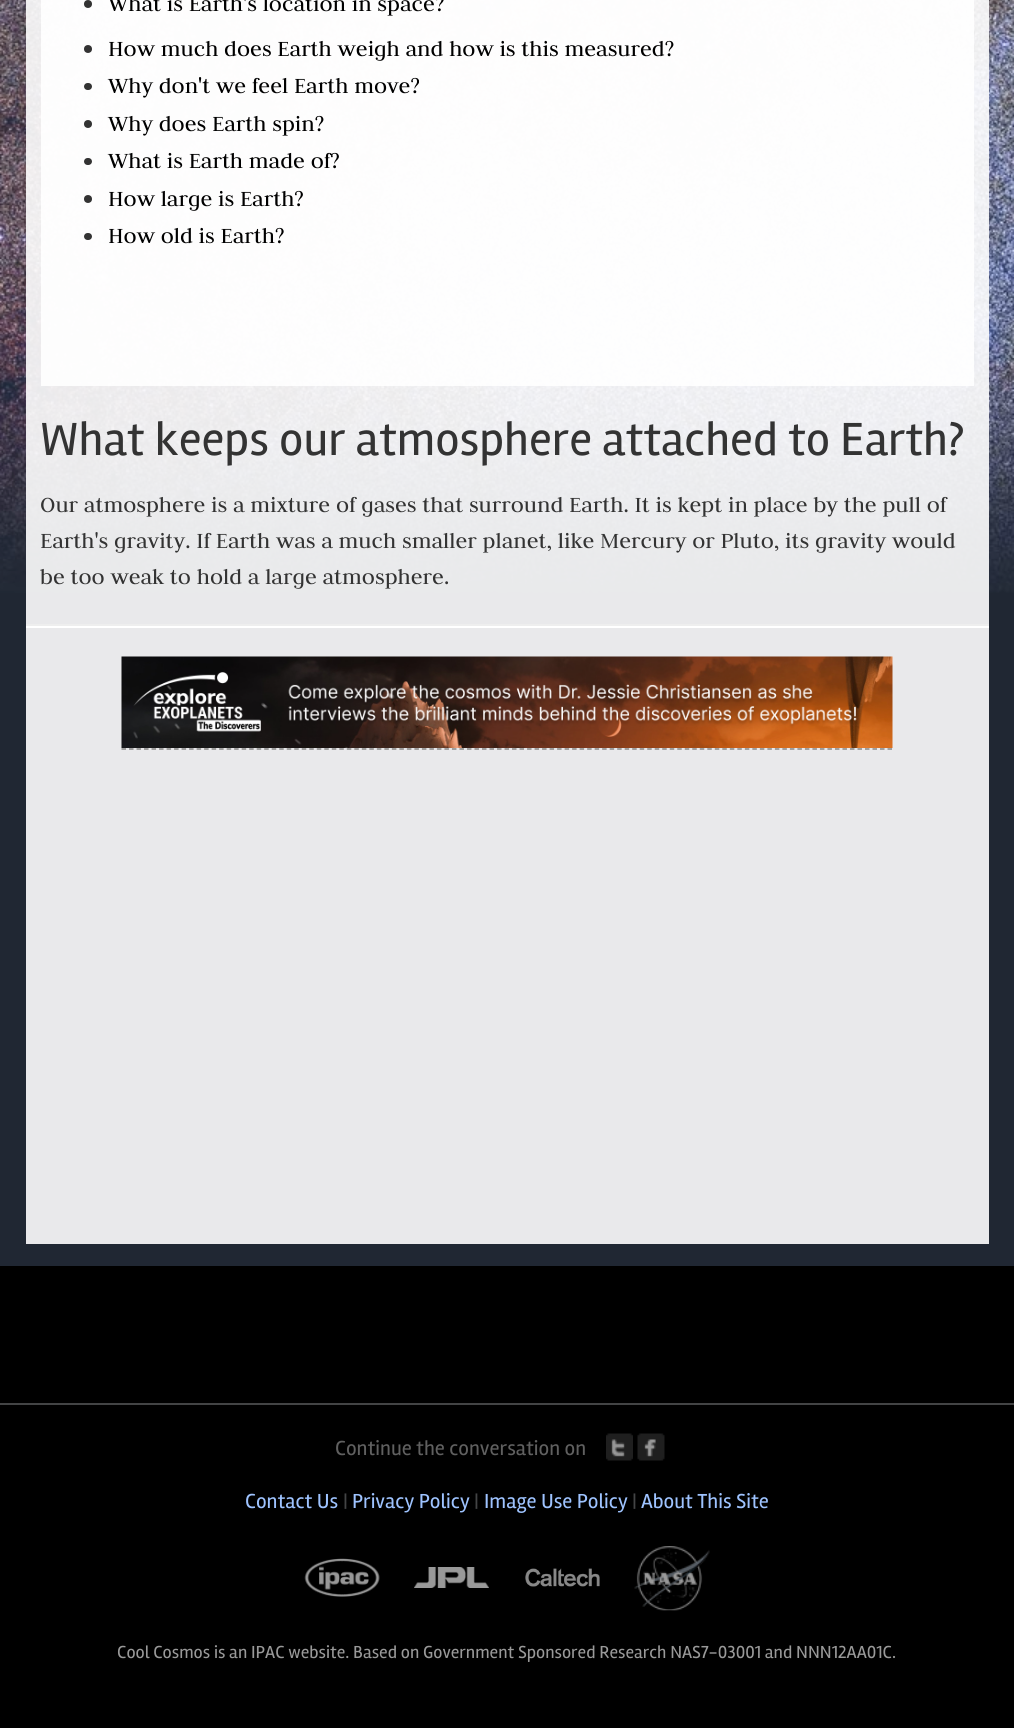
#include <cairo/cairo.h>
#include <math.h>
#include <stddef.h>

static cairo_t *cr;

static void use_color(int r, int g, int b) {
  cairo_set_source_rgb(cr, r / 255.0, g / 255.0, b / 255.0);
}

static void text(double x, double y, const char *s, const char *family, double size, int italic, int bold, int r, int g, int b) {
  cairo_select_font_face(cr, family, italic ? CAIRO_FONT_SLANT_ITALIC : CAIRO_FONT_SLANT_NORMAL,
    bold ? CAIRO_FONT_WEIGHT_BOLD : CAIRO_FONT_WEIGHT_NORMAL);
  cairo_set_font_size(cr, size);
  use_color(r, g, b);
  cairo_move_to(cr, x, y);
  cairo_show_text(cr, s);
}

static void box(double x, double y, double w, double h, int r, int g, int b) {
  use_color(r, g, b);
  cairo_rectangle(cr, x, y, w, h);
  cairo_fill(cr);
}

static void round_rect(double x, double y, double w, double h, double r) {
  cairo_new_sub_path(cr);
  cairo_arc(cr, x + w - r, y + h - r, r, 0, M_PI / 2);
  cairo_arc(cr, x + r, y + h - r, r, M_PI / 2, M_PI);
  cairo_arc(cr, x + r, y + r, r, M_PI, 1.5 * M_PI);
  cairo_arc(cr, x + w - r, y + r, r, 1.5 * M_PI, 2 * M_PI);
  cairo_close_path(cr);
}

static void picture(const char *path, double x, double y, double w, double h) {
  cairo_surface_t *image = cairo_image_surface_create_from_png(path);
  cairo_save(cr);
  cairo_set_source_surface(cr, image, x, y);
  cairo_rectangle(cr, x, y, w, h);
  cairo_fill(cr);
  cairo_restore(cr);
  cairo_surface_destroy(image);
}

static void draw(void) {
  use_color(0, 0, 0);
  cairo_paint(cr);
  box(0, 593, 1014, 673, 32, 39, 51);
  box(26, 593, 963, 651, 233, 233, 235);
  picture("img_01.png", 0, 0, 1014, 593);
  cairo_set_source_rgba(cr, 1, 1, 1, 0.9);
  cairo_rectangle(cr, 41, 0, 933, 386);
  cairo_fill(cr);
  use_color(51, 51, 51);
  cairo_arc(cr, 88, 4, 4, 0, 2 * M_PI);
  cairo_fill(cr);
  cairo_arc(cr, 88, 49, 4, 0, 2 * M_PI);
  cairo_fill(cr);
  round_rect(84, 83, 8, 7, 3.5);
  cairo_fill(cr);
  cairo_arc(cr, 88, 124, 4, 0, 2 * M_PI);
  cairo_fill(cr);
  round_rect(84, 158, 8, 7, 3.5);
  cairo_fill(cr);
  cairo_arc(cr, 88, 199, 4, 0, 2 * M_PI);
  cairo_fill(cr);
  round_rect(84, 233, 8, 7, 3.5);
  cairo_fill(cr);
  box(26, 624, 963, 2, 238, 238, 238);
  box(26, 626, 963, 2, 255, 255, 255);
  picture("img_02.png", 121, 656, 772, 92);
  cairo_new_path(cr);
  cairo_move_to(cr, 121.5, 749);
  cairo_line_to(cr, 892.5, 749);
  use_color(136, 136, 136);
  cairo_set_line_width(cr, 1.5);
  cairo_set_dash(cr, (double[]){4.5, 3.01}, 2, 0);
  cairo_stroke(cr);
  box(0, 1403, 1014, 2, 67, 68, 69);
  picture("img_03.png", 606, 1433, 27, 28);
  picture("img_04.png", 637, 1433, 28, 28);
  picture("img_05.png", 304, 1558, 76, 39);
  picture("img_06.png", 414, 1567, 75, 21);
  picture("img_07.png", 525, 1568, 75, 19);
  picture("img_08.png", 634, 1546, 76, 65);
  text(108, 11, "What is Earth's location in space?", "Judson", 24, 0, 0, 0, 0, 0);
  text(108, 56, "How much does Earth weigh and how is this measured?", "Judson", 24, 0, 0, 0, 0, 0);
  text(108, 93, "Why don't we feel Earth move?", "Judson", 24, 0, 0, 0, 0, 0);
  text(108, 131, "Why does Earth spin?", "Judson", 24, 0, 0, 0, 0, 0);
  text(108, 168, "What is Earth made of?", "Judson", 24, 0, 0, 0, 0, 0);
  text(108, 206, "How large is Earth?", "Judson", 24, 0, 0, 0, 0, 0);
  text(108, 243, "How old is Earth?", "Judson", 24, 0, 0, 0, 0, 0);
  text(40, 455, "What keeps our atmosphere attached to Earth?", "Rambla", 48, 0, 0, 51, 51, 51);
  text(40, 512, "Our atmosphere is a mixture of gases that surround Earth. It is kept in place by the pull of", "Judson", 24, 0, 0, 51, 51, 51);
  text(40, 548, "Earth's gravity. If Earth was a much smaller planet, like Mercury or Pluto, its gravity would", "Judson", 24, 0, 0, 51, 51, 51);
  text(40, 584, "be too weak to hold a large atmosphere.", "Judson", 24, 0, 0, 51, 51, 51);
  text(335, 1455, "Continue the conversation on", "Rambla", 21, 0, 0, 96, 96, 96);
  text(245, 1508, "Contact Us", "Rambla", 21, 0, 0, 158, 195, 255);
  text(343, 1508, "|", "Rambla", 21, 0, 0, 67, 68, 69);
  text(352, 1508, "Privacy Policy", "Rambla", 21, 0, 0, 158, 195, 255);
  text(474, 1508, "|", "Rambla", 21, 0, 0, 67, 68, 69);
  text(484, 1508, "Image Use Policy", "Rambla", 21, 0, 0, 158, 195, 255);
  text(632, 1508, "|", "Rambla", 21, 0, 0, 67, 68, 69);
  text(641, 1508, "About This Site", "Rambla", 21, 0, 0, 158, 195, 255);
  text(117, 1658, "Cool Cosmos is an IPAC website. Based on Government Sponsored Research NAS7-03001 and NNN12AA01C.", "Rambla", 18, 0, 0, 153, 153, 153);
}

int main(void) {
  cairo_surface_t *surface = cairo_image_surface_create(CAIRO_FORMAT_RGB24, 1014, 1728);
  cr = cairo_create(surface);
  cairo_font_options_t *options = cairo_font_options_create();
  cairo_font_options_set_hint_metrics(options, CAIRO_HINT_METRICS_OFF);
  cairo_font_options_set_hint_style(options, CAIRO_HINT_STYLE_NONE);
  cairo_set_font_options(cr, options);
  cairo_set_miter_limit(cr, 4);
  draw();
  cairo_surface_write_to_png(surface, "out.png");
  cairo_font_options_destroy(options);
  cairo_destroy(cr);
  cairo_surface_destroy(surface);
  return 0;
}
